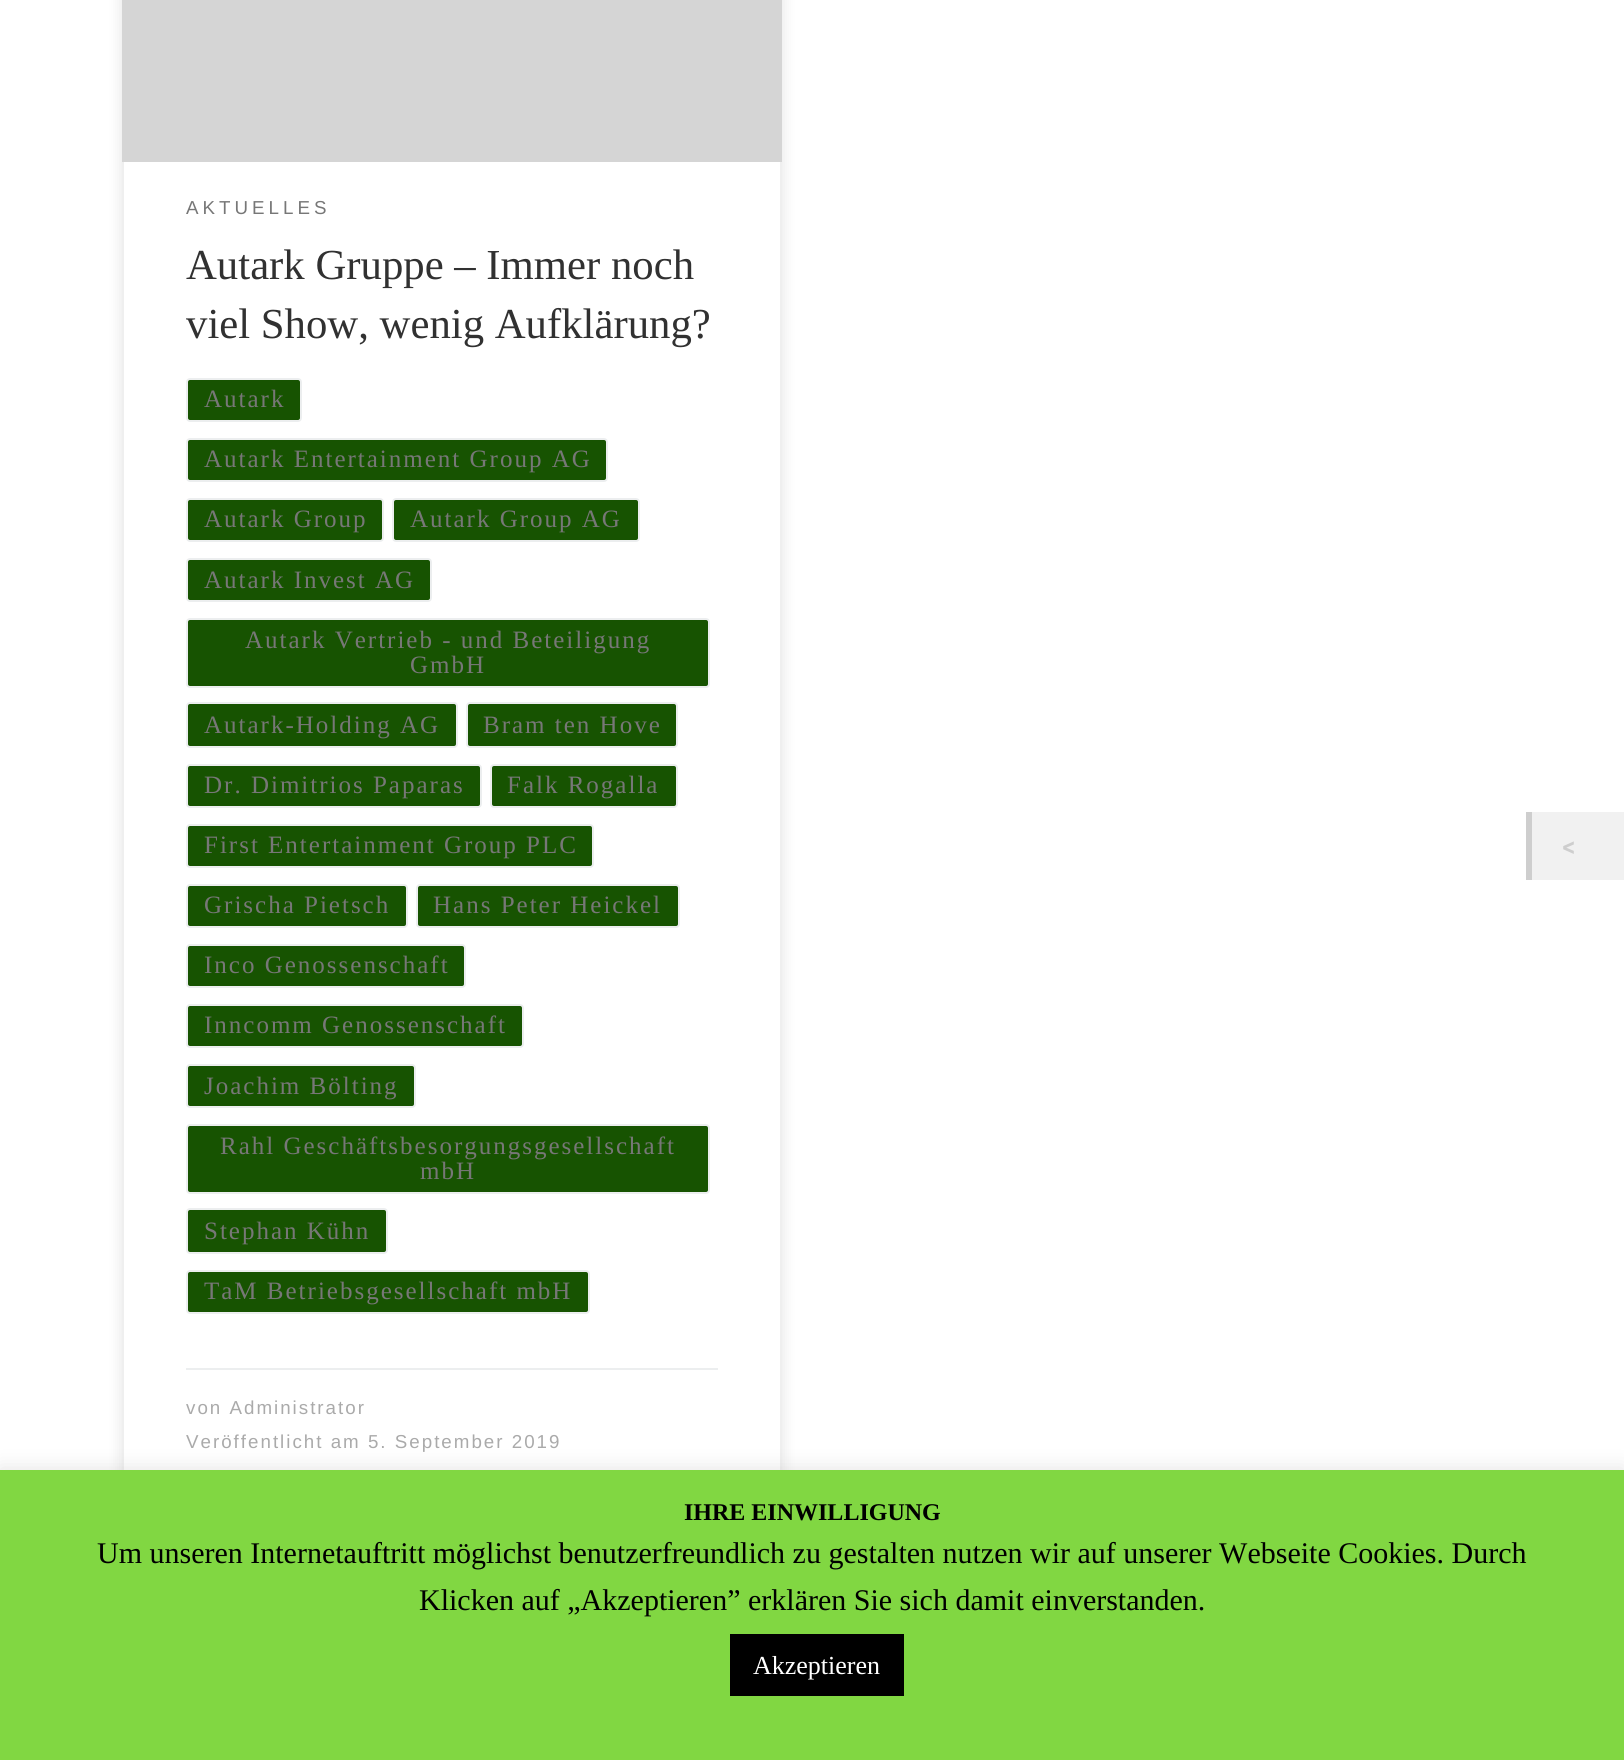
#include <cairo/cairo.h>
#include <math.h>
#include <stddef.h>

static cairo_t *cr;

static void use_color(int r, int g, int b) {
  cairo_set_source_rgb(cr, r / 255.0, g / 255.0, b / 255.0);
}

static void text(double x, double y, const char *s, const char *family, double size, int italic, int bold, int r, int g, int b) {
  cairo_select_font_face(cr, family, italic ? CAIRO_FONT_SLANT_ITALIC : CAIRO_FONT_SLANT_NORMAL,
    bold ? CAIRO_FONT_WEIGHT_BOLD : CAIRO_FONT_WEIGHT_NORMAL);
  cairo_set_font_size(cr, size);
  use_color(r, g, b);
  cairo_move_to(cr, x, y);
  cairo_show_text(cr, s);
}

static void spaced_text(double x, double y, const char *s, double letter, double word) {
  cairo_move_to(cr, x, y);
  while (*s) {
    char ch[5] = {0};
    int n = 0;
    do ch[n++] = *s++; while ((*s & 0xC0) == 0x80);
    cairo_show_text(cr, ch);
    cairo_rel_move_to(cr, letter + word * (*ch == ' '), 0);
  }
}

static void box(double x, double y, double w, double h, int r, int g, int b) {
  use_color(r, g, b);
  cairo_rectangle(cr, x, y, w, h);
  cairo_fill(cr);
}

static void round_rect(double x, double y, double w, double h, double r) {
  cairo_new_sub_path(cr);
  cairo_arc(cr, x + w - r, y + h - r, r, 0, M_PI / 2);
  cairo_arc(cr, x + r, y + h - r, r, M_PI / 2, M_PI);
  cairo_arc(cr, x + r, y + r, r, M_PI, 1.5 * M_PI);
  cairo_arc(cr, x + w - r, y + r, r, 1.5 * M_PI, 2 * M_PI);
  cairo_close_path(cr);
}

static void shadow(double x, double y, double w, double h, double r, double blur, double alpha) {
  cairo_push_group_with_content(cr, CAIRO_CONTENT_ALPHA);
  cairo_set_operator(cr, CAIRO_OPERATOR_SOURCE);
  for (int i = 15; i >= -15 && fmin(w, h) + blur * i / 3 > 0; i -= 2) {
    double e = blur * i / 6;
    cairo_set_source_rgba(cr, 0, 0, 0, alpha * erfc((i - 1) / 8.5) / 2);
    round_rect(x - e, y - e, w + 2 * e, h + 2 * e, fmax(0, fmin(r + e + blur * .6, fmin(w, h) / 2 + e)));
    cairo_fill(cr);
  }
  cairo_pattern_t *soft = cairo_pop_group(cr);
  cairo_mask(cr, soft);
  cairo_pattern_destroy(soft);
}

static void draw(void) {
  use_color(255, 255, 255);
  cairo_paint(cr);
  cairo_save(cr);
  cairo_set_fill_rule(cr, CAIRO_FILL_RULE_EVEN_ODD);
  cairo_new_path(cr);
  cairo_move_to(cr, 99, 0);
  cairo_line_to(cr, 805, 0);
  cairo_line_to(cr, 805, 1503);
  cairo_line_to(cr, 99, 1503);
  cairo_close_path(cr);
  cairo_move_to(cr, 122, -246);
  cairo_line_to(cr, 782, -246);
  cairo_line_to(cr, 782, 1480);
  cairo_line_to(cr, 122, 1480);
  cairo_close_path(cr);
  cairo_clip(cr);
  use_color(0, 0, 0);
  shadow(118, -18, 668, 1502, 0, 6, 0.07);
  cairo_restore(cr);
  use_color(23, 83, 1);
  round_rect(187, 379, 114, 42, 3);
  cairo_fill_preserve(cr);
  use_color(236, 238, 239);
  cairo_stroke(cr);
  use_color(23, 83, 1);
  round_rect(187, 439, 420, 42, 3);
  cairo_fill_preserve(cr);
  use_color(236, 238, 239);
  cairo_stroke(cr);
  use_color(23, 83, 1);
  round_rect(187, 499, 196, 42, 3);
  cairo_fill_preserve(cr);
  use_color(236, 238, 239);
  cairo_stroke(cr);
  use_color(23, 83, 1);
  round_rect(393, 499, 246, 42, 3);
  cairo_fill_preserve(cr);
  use_color(236, 238, 239);
  cairo_stroke(cr);
  use_color(23, 83, 1);
  round_rect(187, 559, 244, 42, 3);
  cairo_fill_preserve(cr);
  use_color(236, 238, 239);
  cairo_stroke(cr);
  use_color(23, 83, 1);
  round_rect(187, 619, 522, 68, 3);
  cairo_fill_preserve(cr);
  use_color(236, 238, 239);
  cairo_stroke(cr);
  use_color(23, 83, 1);
  round_rect(187, 703, 270, 44, 3);
  cairo_fill_preserve(cr);
  use_color(236, 238, 239);
  cairo_stroke(cr);
  use_color(23, 83, 1);
  round_rect(467, 703, 210, 44, 3);
  cairo_fill_preserve(cr);
  use_color(236, 238, 239);
  cairo_stroke(cr);
  use_color(23, 83, 1);
  round_rect(187, 765, 294, 42, 3);
  cairo_fill_preserve(cr);
  use_color(236, 238, 239);
  cairo_stroke(cr);
  use_color(23, 83, 1);
  round_rect(491, 765, 186, 42, 3);
  cairo_fill_preserve(cr);
  use_color(236, 238, 239);
  cairo_stroke(cr);
  use_color(23, 83, 1);
  round_rect(187, 825, 406, 42, 3);
  cairo_fill_preserve(cr);
  use_color(236, 238, 239);
  cairo_stroke(cr);
  use_color(23, 83, 1);
  round_rect(187, 885, 220, 42, 3);
  cairo_fill_preserve(cr);
  use_color(236, 238, 239);
  cairo_stroke(cr);
  use_color(23, 83, 1);
  round_rect(417, 885, 262, 42, 3);
  cairo_fill_preserve(cr);
  use_color(236, 238, 239);
  cairo_stroke(cr);
  use_color(23, 83, 1);
  round_rect(187, 945, 278, 42, 3);
  cairo_fill_preserve(cr);
  use_color(236, 238, 239);
  cairo_stroke(cr);
  use_color(23, 83, 1);
  round_rect(187, 1005, 336, 42, 3);
  cairo_fill_preserve(cr);
  use_color(236, 238, 239);
  cairo_stroke(cr);
  use_color(23, 83, 1);
  round_rect(187, 1065, 228, 42, 3);
  cairo_fill_preserve(cr);
  use_color(236, 238, 239);
  cairo_stroke(cr);
  use_color(23, 83, 1);
  round_rect(187, 1125, 522, 68, 3);
  cairo_fill_preserve(cr);
  use_color(236, 238, 239);
  cairo_stroke(cr);
  use_color(23, 83, 1);
  round_rect(187, 1209, 200, 44, 3);
  cairo_fill_preserve(cr);
  use_color(236, 238, 239);
  cairo_stroke(cr);
  use_color(23, 83, 1);
  round_rect(187, 1271, 402, 42, 3);
  cairo_fill_preserve(cr);
  use_color(236, 238, 239);
  cairo_stroke(cr);
  cairo_rectangle(cr, 123, -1, 658, 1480);
  use_color(239, 239, 239);
  cairo_stroke(cr);
  box(122, 0, 660, 162, 213, 213, 213);
  box(186, 1368, 532, 2, 236, 238, 239);
  box(1532, 812, 92, 68, 241, 241, 241);
  box(1526, 812, 6, 68, 206, 206, 206);
  use_color(172, 171, 171);
  shadow(0, 1468, 1624, 290, 0, 10, 0.3);
  box(0, 1470, 1624, 290, 129, 215, 66);
  box(730, 1634, 174, 62, 0, 0, 0);
  cairo_select_font_face(cr, "Liberation Sans", CAIRO_FONT_SLANT_NORMAL, CAIRO_FONT_WEIGHT_NORMAL);
  cairo_set_font_size(cr, 18.75);
  use_color(119, 119, 119);
  spaced_text(186, 214, "AKTUELLES", 4, 0);
  text(186, 279, "Autark Gruppe – Immer noch", "Liberation Serif", 42.75, 0, 0, 49, 49, 49);
  text(186, 338, "viel Show, wenig Aufklärung?", "Liberation Serif", 42.75, 0, 0, 49, 49, 49);
  cairo_set_font_size(cr, 25);
  use_color(119, 119, 119);
  spaced_text(204, 407, "Autark", 2, 0);
  spaced_text(204, 467, "Autark Entertainment Group AG", 2, 0);
  spaced_text(204, 527, "Autark Group", 2, 0);
  spaced_text(410, 527, "Autark Group AG", 2, 0);
  spaced_text(204, 588, "Autark Invest AG", 2, 0);
  spaced_text(245, 648, "Autark Vertrieb - und Beteiligung", 2, 0);
  spaced_text(410, 673, "GmbH", 2, 0);
  spaced_text(204, 733, "Autark-Holding AG", 2, 0);
  spaced_text(483, 733, "Bram ten Hove", 2, 0);
  spaced_text(204, 793, "Dr. Dimitrios Paparas", 2, 0);
  spaced_text(507, 793, "Falk Rogalla", 2, 0);
  spaced_text(204, 853, "First Entertainment Group PLC", 2, 0);
  spaced_text(204, 913, "Grischa Pietsch", 2, 0);
  spaced_text(433, 913, "Hans Peter Heickel", 2, 0);
  spaced_text(204, 973, "Inco Genossenschaft", 2, 0);
  spaced_text(204, 1033, "Inncomm Genossenschaft", 2, 0);
  spaced_text(204, 1094, "Joachim Bölting", 2, 0);
  spaced_text(220, 1154, "Rahl Geschäftsbesorgungsgesellschaft", 2, 0);
  spaced_text(420, 1179, "mbH", 2, 0);
  spaced_text(204, 1239, "Stephan Kühn", 2, 0);
  spaced_text(204, 1299, "TaM Betriebsgesellschaft mbH", 2, 0);
  cairo_select_font_face(cr, "Liberation Sans", CAIRO_FONT_SLANT_NORMAL, CAIRO_FONT_WEIGHT_NORMAL);
  cairo_set_font_size(cr, 18.75);
  use_color(170, 170, 170);
  spaced_text(186, 1414, "von Administrator", 2, 0);
  spaced_text(186, 1448, "Veröffentlicht am 5. September 2019", 2, 0);
  text(1562, 856, "<", "Cabin", 30, 0, 1, 206, 206, 206);
  text(684, 1520, "IHRE EINWILLIGUNG", "Liberation Serif", 24, 0, 1, 0, 0, 0);
  text(97, 1563, "Um unseren Internetauftritt möglichst benutzerfreundlich zu gestalten nutzen wir auf unserer Webseite Cookies. Durch", "Liberation Serif", 30, 0, 0, 0, 0, 0);
  text(419, 1610, "Klicken auf „Akzeptieren” erklären Sie sich damit einverstanden.", "Liberation Serif", 30, 0, 0, 0, 0, 0);
  text(753, 1674, "Akzeptieren", "Liberation Serif", 26, 0, 0, 255, 255, 255);
}

int main(void) {
  cairo_surface_t *surface = cairo_image_surface_create(CAIRO_FORMAT_RGB24, 1624, 1760);
  cr = cairo_create(surface);
  cairo_font_options_t *options = cairo_font_options_create();
  cairo_font_options_set_hint_metrics(options, CAIRO_HINT_METRICS_OFF);
  cairo_font_options_set_hint_style(options, CAIRO_HINT_STYLE_NONE);
  cairo_set_font_options(cr, options);
  cairo_set_miter_limit(cr, 4);
  draw();
  cairo_surface_write_to_png(surface, "out.png");
  cairo_font_options_destroy(options);
  cairo_destroy(cr);
  cairo_surface_destroy(surface);
  return 0;
}
